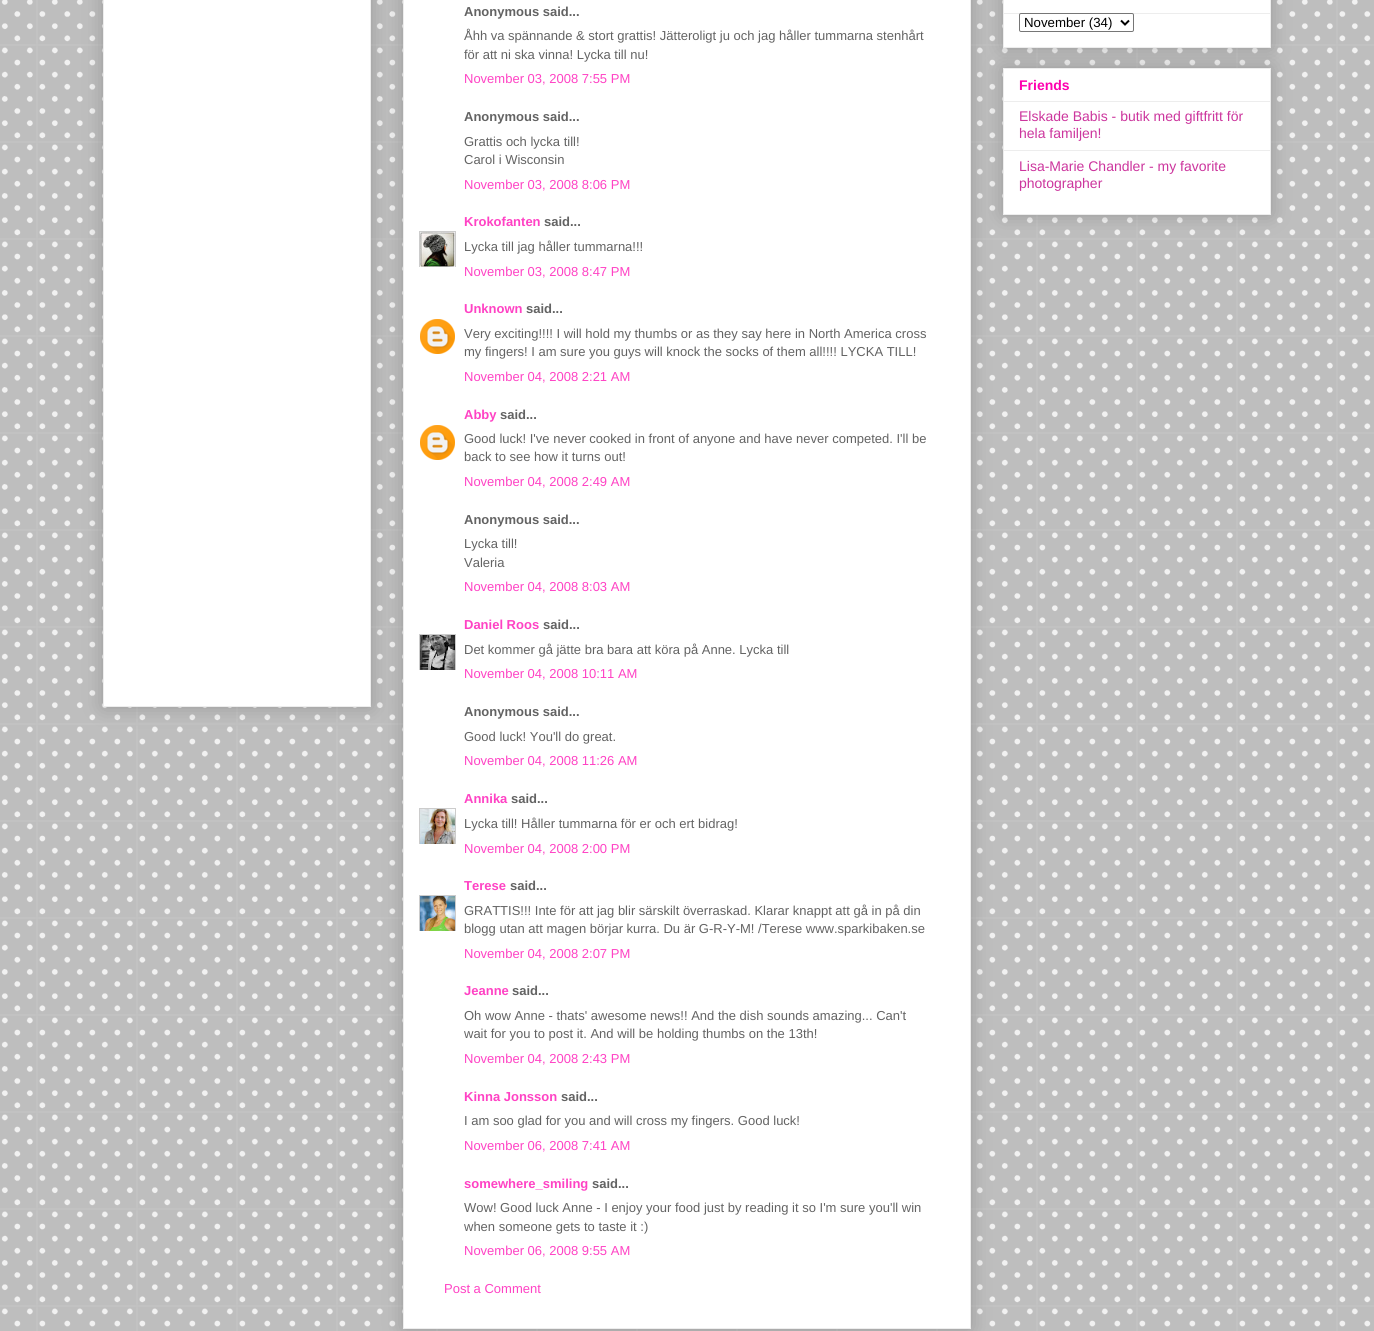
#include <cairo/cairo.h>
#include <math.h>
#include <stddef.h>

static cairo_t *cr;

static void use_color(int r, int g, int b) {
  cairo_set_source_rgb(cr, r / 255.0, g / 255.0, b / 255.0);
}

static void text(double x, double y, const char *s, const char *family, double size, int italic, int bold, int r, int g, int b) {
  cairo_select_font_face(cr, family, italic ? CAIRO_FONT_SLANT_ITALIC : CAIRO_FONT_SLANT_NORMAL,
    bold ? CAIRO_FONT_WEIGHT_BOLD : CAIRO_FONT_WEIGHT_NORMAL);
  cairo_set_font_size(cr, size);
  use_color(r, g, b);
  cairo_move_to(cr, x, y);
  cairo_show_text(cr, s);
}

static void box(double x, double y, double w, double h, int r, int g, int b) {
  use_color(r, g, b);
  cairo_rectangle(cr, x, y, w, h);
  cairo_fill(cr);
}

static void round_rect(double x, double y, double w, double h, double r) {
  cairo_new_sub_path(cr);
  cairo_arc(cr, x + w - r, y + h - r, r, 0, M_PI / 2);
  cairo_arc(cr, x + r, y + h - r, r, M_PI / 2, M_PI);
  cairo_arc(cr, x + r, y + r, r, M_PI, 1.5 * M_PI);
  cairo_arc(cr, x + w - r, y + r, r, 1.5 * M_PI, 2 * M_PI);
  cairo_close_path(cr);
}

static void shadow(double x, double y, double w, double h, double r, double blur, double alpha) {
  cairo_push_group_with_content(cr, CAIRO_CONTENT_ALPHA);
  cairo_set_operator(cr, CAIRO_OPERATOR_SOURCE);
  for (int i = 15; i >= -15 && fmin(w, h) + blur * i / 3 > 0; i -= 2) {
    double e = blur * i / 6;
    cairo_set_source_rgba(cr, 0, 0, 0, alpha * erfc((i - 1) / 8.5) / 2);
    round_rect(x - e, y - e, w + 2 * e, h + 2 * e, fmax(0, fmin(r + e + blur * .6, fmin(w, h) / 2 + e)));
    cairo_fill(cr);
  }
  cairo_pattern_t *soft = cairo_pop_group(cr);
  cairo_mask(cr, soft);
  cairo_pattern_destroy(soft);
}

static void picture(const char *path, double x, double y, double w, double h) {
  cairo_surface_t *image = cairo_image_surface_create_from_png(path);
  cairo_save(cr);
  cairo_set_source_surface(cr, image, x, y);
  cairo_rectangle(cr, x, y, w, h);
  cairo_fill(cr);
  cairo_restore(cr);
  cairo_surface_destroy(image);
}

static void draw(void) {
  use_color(237, 237, 237);
  cairo_paint(cr);
  picture("img_01.png", 0, 0, 1374, 1331);
  use_color(0, 0, 0);
  shadow(103, -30, 268, 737, 0, 10, 0.2);
  use_color(255, 255, 255);
  cairo_rectangle(cr, 103.5, -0.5, 267, 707);
  cairo_fill_preserve(cr);
  use_color(237, 237, 237);
  cairo_set_line_width(cr, 1);
  cairo_stroke(cr);
  use_color(0, 0, 0);
  shadow(403, -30, 568, 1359, 0, 10, 0.2);
  use_color(255, 255, 255);
  cairo_rectangle(cr, 403.5, -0.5, 567, 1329);
  cairo_fill_preserve(cr);
  use_color(237, 237, 237);
  cairo_stroke(cr);
  cairo_save(cr);
  cairo_rectangle(cr, 419, 231, 37, 36);
  cairo_clip(cr);
  cairo_rectangle(cr, 419.5, 231.5, 36, 36);
  use_color(204, 204, 204);
  cairo_stroke(cr);
  cairo_restore(cr);
  picture("img_02.png", 420, 232, 35, 35);
  picture("img_03.png", 420, 319, 35, 35);
  picture("img_03.png", 420, 425, 35, 35);
  cairo_save(cr);
  cairo_rectangle(cr, 419, 634, 37, 36);
  cairo_clip(cr);
  cairo_rectangle(cr, 419.5, 634.5, 36, 36);
  use_color(204, 204, 204);
  cairo_stroke(cr);
  cairo_restore(cr);
  picture("img_04.png", 420, 635, 35, 35);
  cairo_save(cr);
  cairo_rectangle(cr, 419, 808, 37, 36);
  cairo_clip(cr);
  cairo_rectangle(cr, 419.5, 808.5, 36, 36);
  use_color(204, 204, 204);
  cairo_stroke(cr);
  cairo_restore(cr);
  picture("img_05.png", 420, 809, 35, 35);
  cairo_save(cr);
  cairo_rectangle(cr, 419, 895, 37, 36);
  cairo_clip(cr);
  cairo_rectangle(cr, 419.5, 895.5, 36, 36);
  use_color(204, 204, 204);
  cairo_stroke(cr);
  cairo_restore(cr);
  picture("img_06.png", 420, 896, 35, 35);
  use_color(0, 0, 0);
  shadow(1003, -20, 268, 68, 0, 10, 0.2);
  use_color(255, 255, 255);
  cairo_rectangle(cr, 1003.5, -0.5, 267, 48);
  cairo_fill_preserve(cr);
  use_color(237, 237, 237);
  cairo_stroke(cr);
  box(1004, 13, 266, 1, 237, 237, 237);
  use_color(255, 255, 255);
  round_rect(1019.5, 13.5, 114, 18, 1.5);
  cairo_fill_preserve(cr);
  use_color(118, 118, 118);
  cairo_stroke(cr);
  cairo_new_path(cr);
  cairo_move_to(cr, 1121, 20.5);
  cairo_line_to(cr, 1125, 24.5);
  cairo_line_to(cr, 1129, 20.5);
  use_color(0, 0, 0);
  cairo_set_line_width(cr, 2);
  cairo_stroke(cr);
  use_color(0, 0, 0);
  shadow(1003, 68, 268, 147, 0, 10, 0.2);
  use_color(255, 255, 255);
  cairo_rectangle(cr, 1003.5, 68.5, 267, 146);
  cairo_fill_preserve(cr);
  use_color(237, 237, 237);
  cairo_set_line_width(cr, 1);
  cairo_stroke(cr);
  box(1004, 101, 266, 1, 237, 237, 237);
  box(1004, 150, 266, 1, 237, 237, 237);
  text(464, 16, "Anonymous said...", "Liberation Sans", 13, 0, 1, 99, 99, 99);
  text(464, 40, "Åhh va spännande & stort grattis! Jätteroligt ju och jag håller tummarna stenhårt", "Liberation Sans", 13, 0, 0, 99, 99, 99);
  text(464, 59, "för att ni ska vinna! Lycka till nu!", "Liberation Sans", 13, 0, 0, 99, 99, 99);
  text(464, 83, "November 03, 2008 7:55 PM", "Liberation Sans", 13, 0, 0, 255, 66, 196);
  text(464, 121, "Anonymous said...", "Liberation Sans", 13, 0, 1, 99, 99, 99);
  text(464, 146, "Grattis och lycka till!", "Liberation Sans", 13, 0, 0, 99, 99, 99);
  text(464, 164, "Carol i Wisconsin", "Liberation Sans", 13, 0, 0, 99, 99, 99);
  text(464, 189, "November 03, 2008 8:06 PM", "Liberation Sans", 13, 0, 0, 255, 66, 196);
  text(464, 226, "Krokofanten", "Liberation Sans", 13, 0, 1, 255, 66, 196);
  text(544, 226, "said...", "Liberation Sans", 13, 0, 1, 99, 99, 99);
  text(464, 251, "Lycka till jag håller tummarna!!!", "Liberation Sans", 13, 0, 0, 99, 99, 99);
  text(464, 276, "November 03, 2008 8:47 PM", "Liberation Sans", 13, 0, 0, 255, 66, 196);
  text(464, 313, "Unknown", "Liberation Sans", 13, 0, 1, 255, 66, 196);
  text(526, 313, "said...", "Liberation Sans", 13, 0, 1, 99, 99, 99);
  text(464, 338, "Very exciting!!!! I will hold my thumbs or as they say here in North America cross", "Liberation Sans", 13, 0, 0, 99, 99, 99);
  text(464, 356, "my fingers! I am sure you guys will knock the socks of them all!!!! LYCKA TILL!", "Liberation Sans", 13, 0, 0, 99, 99, 99);
  text(464, 381, "November 04, 2008 2:21 AM", "Liberation Sans", 13, 0, 0, 255, 66, 196);
  text(464, 419, "Abby", "Liberation Sans", 13, 0, 1, 255, 66, 196);
  text(500, 419, "said...", "Liberation Sans", 13, 0, 1, 99, 99, 99);
  text(464, 443, "Good luck! I've never cooked in front of anyone and have never competed. I'll be", "Liberation Sans", 13, 0, 0, 99, 99, 99);
  text(464, 461, "back to see how it turns out!", "Liberation Sans", 13, 0, 0, 99, 99, 99);
  text(464, 486, "November 04, 2008 2:49 AM", "Liberation Sans", 13, 0, 0, 255, 66, 196);
  text(464, 524, "Anonymous said...", "Liberation Sans", 13, 0, 1, 99, 99, 99);
  text(464, 548, "Lycka till!", "Liberation Sans", 13, 0, 0, 99, 99, 99);
  text(464, 567, "Valeria", "Liberation Sans", 13, 0, 0, 99, 99, 99);
  text(464, 591, "November 04, 2008 8:03 AM", "Liberation Sans", 13, 0, 0, 255, 66, 196);
  text(464, 629, "Daniel Roos", "Liberation Sans", 13, 0, 1, 255, 66, 196);
  text(543, 629, "said...", "Liberation Sans", 13, 0, 1, 99, 99, 99);
  text(464, 654, "Det kommer gå jätte bra bara att köra på Anne. Lycka till", "Liberation Sans", 13, 0, 0, 99, 99, 99);
  text(464, 678, "November 04, 2008 10:11 AM", "Liberation Sans", 13, 0, 0, 255, 66, 196);
  text(464, 716, "Anonymous said...", "Liberation Sans", 13, 0, 1, 99, 99, 99);
  text(464, 741, "Good luck! You'll do great.", "Liberation Sans", 13, 0, 0, 99, 99, 99);
  text(464, 765, "November 04, 2008 11:26 AM", "Liberation Sans", 13, 0, 0, 255, 66, 196);
  text(464, 803, "Annika", "Liberation Sans", 13, 0, 1, 255, 66, 196);
  text(511, 803, "said...", "Liberation Sans", 13, 0, 1, 99, 99, 99);
  text(464, 828, "Lycka till! Håller tummarna för er och ert bidrag!", "Liberation Sans", 13, 0, 0, 99, 99, 99);
  text(464, 853, "November 04, 2008 2:00 PM", "Liberation Sans", 13, 0, 0, 255, 66, 196);
  text(464, 890, "Terese", "Liberation Sans", 13, 0, 1, 255, 66, 196);
  text(510, 890, "said...", "Liberation Sans", 13, 0, 1, 99, 99, 99);
  text(464, 915, "GRATTIS!!! Inte för att jag blir särskilt överraskad. Klarar knappt att gå in på din", "Liberation Sans", 13, 0, 0, 99, 99, 99);
  text(464, 933, "blogg utan att magen börjar kurra. Du är G-R-Y-M! /Terese www.sparkibaken.se", "Liberation Sans", 13, 0, 0, 99, 99, 99);
  text(464, 958, "November 04, 2008 2:07 PM", "Liberation Sans", 13, 0, 0, 255, 66, 196);
  text(464, 995, "Jeanne", "Liberation Sans", 13, 0, 1, 255, 66, 196);
  text(512, 995, "said...", "Liberation Sans", 13, 0, 1, 99, 99, 99);
  text(464, 1020, "Oh wow Anne - thats' awesome news!! And the dish sounds amazing... Can't", "Liberation Sans", 13, 0, 0, 99, 99, 99);
  text(464, 1038, "wait for you to post it. And will be holding thumbs on the 13th!", "Liberation Sans", 13, 0, 0, 99, 99, 99);
  text(464, 1063, "November 04, 2008 2:43 PM", "Liberation Sans", 13, 0, 0, 255, 66, 196);
  text(464, 1101, "Kinna Jonsson", "Liberation Sans", 13, 0, 1, 255, 66, 196);
  text(561, 1101, "said...", "Liberation Sans", 13, 0, 1, 99, 99, 99);
  text(464, 1125, "I am soo glad for you and will cross my fingers. Good luck!", "Liberation Sans", 13, 0, 0, 99, 99, 99);
  text(464, 1150, "November 06, 2008 7:41 AM", "Liberation Sans", 13, 0, 0, 255, 66, 196);
  text(464, 1188, "somewhere_smiling", "Liberation Sans", 13, 0, 1, 255, 66, 196);
  text(592, 1188, "said...", "Liberation Sans", 13, 0, 1, 99, 99, 99);
  text(464, 1212, "Wow! Good luck Anne - I enjoy your food just by reading it so I'm sure you'll win", "Liberation Sans", 13, 0, 0, 99, 99, 99);
  text(464, 1231, "when someone gets to taste it :)", "Liberation Sans", 13, 0, 0, 99, 99, 99);
  text(464, 1255, "November 06, 2008 9:55 AM", "Liberation Sans", 13, 0, 0, 255, 66, 196);
  text(444, 1293, "Post a Comment", "Liberation Sans", 13, 0, 0, 255, 66, 196);
  text(1024, 27, "November (34)", "Liberation Sans", 13.25, 0, 0, 0, 0, 0);
  text(1019, 90, "Friends", "Liberation Sans", 14, 0, 1, 255, 0, 175);
  text(1019, 121, "Elskade Babis - butik med giftfritt för", "Liberation Sans", 14, 0, 0, 204, 53, 157);
  text(1019, 138, "hela familjen!", "Liberation Sans", 14, 0, 0, 204, 53, 157);
  text(1019, 171, "Lisa-Marie Chandler - my favorite", "Liberation Sans", 14, 0, 0, 204, 53, 157);
  text(1019, 188, "photographer", "Liberation Sans", 14, 0, 0, 204, 53, 157);
}

int main(void) {
  cairo_surface_t *surface = cairo_image_surface_create(CAIRO_FORMAT_RGB24, 1374, 1331);
  cr = cairo_create(surface);
  cairo_font_options_t *options = cairo_font_options_create();
  cairo_font_options_set_hint_metrics(options, CAIRO_HINT_METRICS_OFF);
  cairo_font_options_set_hint_style(options, CAIRO_HINT_STYLE_NONE);
  cairo_set_font_options(cr, options);
  cairo_set_miter_limit(cr, 4);
  draw();
  cairo_surface_write_to_png(surface, "out.png");
  cairo_font_options_destroy(options);
  cairo_destroy(cr);
  cairo_surface_destroy(surface);
  return 0;
}
